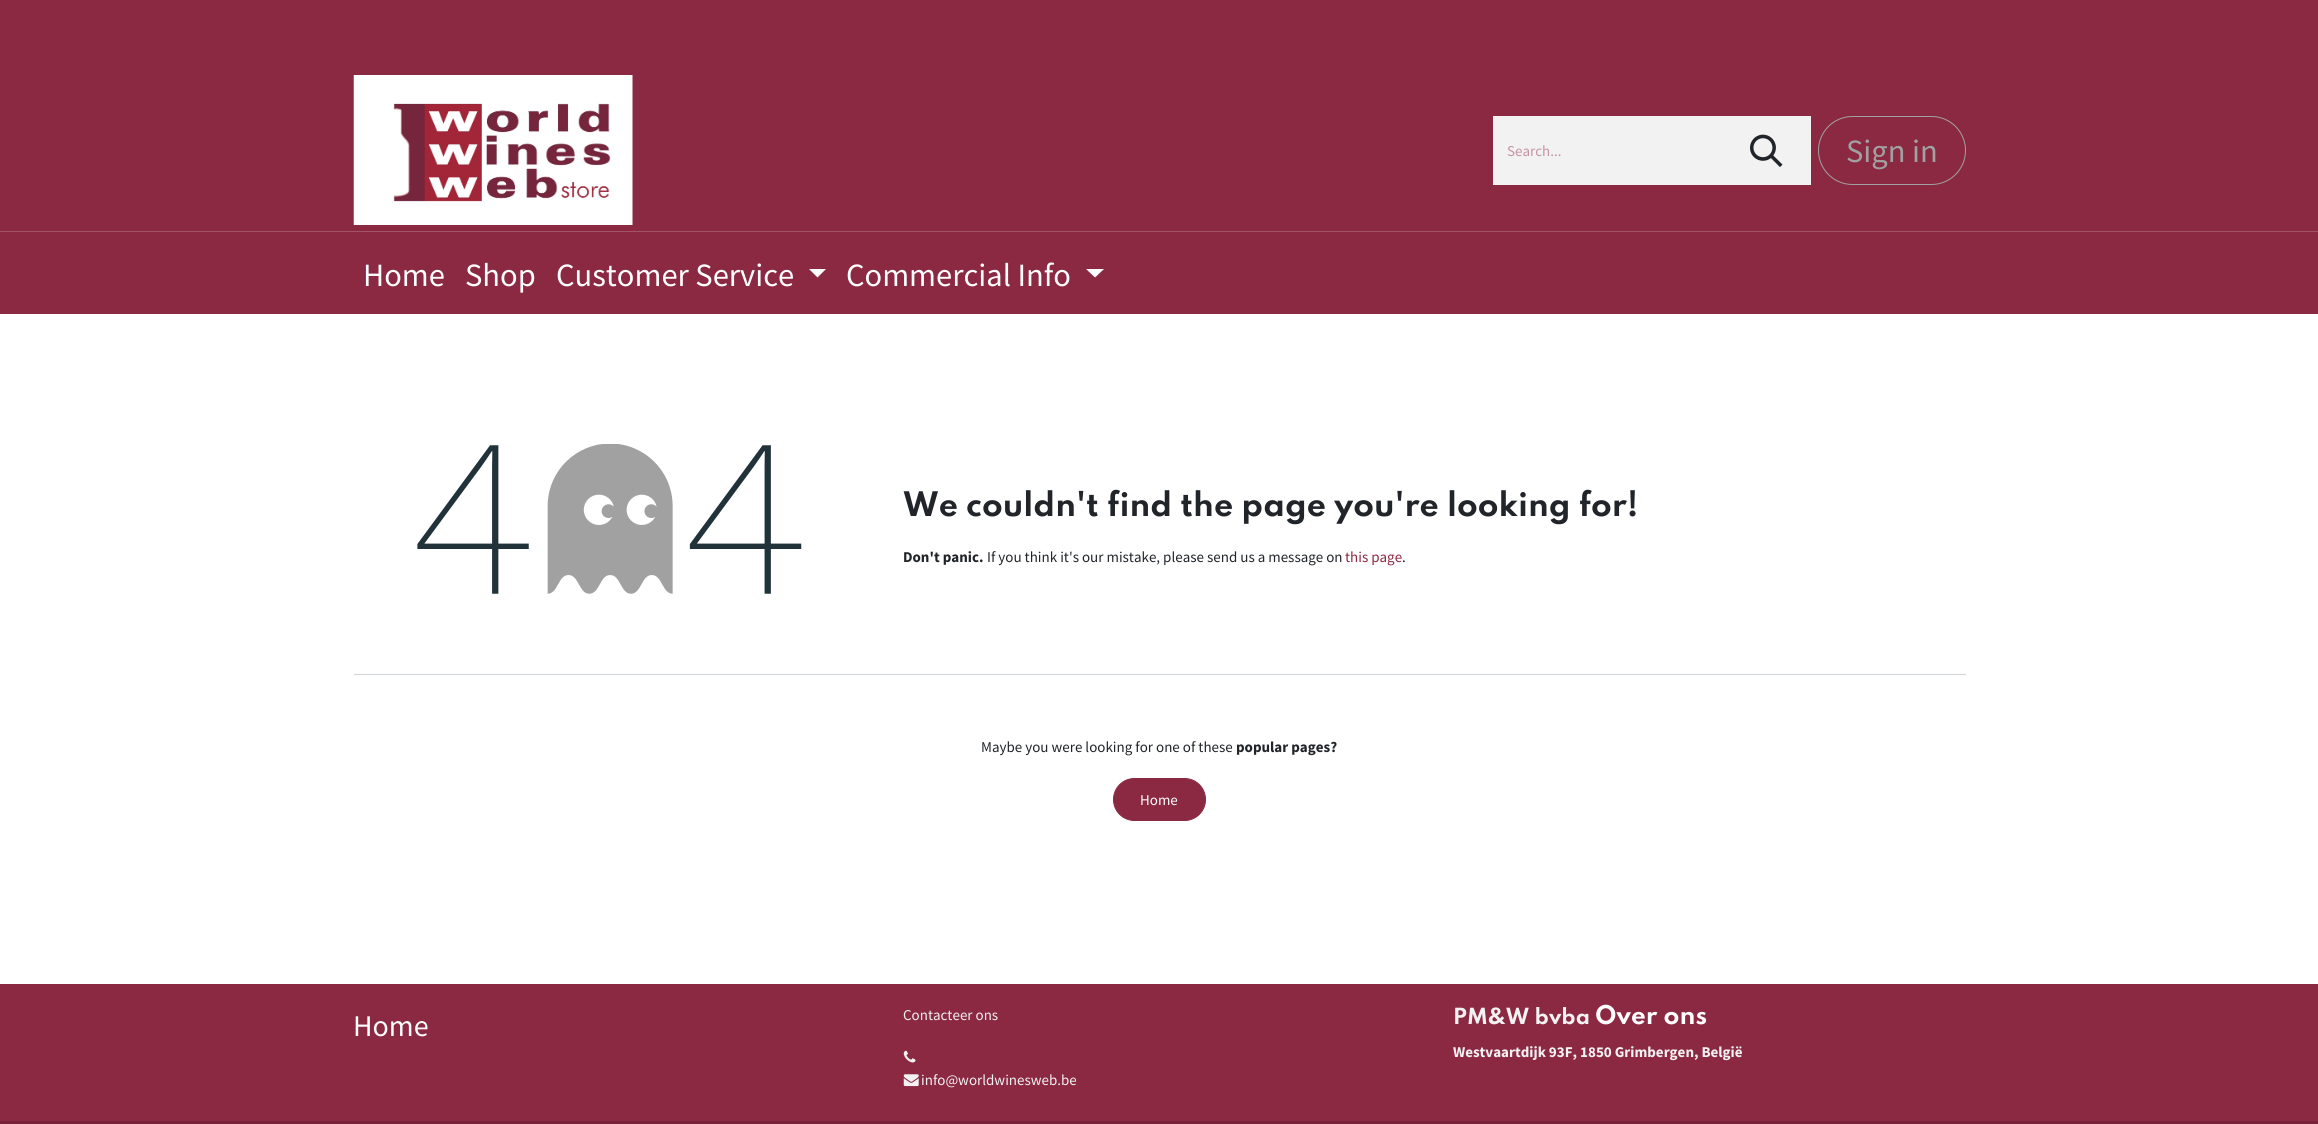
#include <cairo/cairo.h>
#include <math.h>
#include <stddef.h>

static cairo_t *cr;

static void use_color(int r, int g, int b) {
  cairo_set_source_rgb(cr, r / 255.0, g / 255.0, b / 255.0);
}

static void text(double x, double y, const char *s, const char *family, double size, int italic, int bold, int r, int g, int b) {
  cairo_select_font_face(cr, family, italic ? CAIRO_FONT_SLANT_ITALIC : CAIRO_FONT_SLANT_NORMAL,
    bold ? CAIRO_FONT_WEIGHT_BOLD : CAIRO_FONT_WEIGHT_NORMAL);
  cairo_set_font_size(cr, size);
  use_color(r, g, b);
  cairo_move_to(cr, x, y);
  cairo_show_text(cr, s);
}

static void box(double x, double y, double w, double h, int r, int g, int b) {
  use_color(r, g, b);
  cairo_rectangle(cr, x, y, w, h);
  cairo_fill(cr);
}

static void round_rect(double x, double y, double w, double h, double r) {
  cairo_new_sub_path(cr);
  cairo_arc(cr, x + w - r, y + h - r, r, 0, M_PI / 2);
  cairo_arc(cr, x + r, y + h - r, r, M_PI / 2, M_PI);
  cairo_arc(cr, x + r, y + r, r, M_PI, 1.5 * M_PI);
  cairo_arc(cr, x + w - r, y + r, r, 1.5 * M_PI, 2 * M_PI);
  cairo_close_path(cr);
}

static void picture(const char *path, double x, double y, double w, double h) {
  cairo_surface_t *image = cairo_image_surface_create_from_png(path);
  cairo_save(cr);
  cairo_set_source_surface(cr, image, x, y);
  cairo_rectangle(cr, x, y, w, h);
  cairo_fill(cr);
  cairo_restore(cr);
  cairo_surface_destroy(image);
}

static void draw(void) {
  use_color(255, 255, 255);
  cairo_paint(cr);
  box(0, 0, 2318, 314, 139, 40, 66);
  picture("img_01.png", 353, 75, 280, 150);
  box(1493, 116, 318, 69, 242, 242, 243);
  picture("img_02.png", 1750, 134, 33, 33);
  round_rect(1818.5, 116.5, 147, 68, 34);
  use_color(161, 161, 161);
  cairo_set_line_width(cr, 1);
  cairo_stroke(cr);
  box(0, 231, 2318, 1, 162, 83, 104);
  use_color(255, 255, 255);
  cairo_new_path(cr);
  cairo_move_to(cr, 809, 269);
  cairo_line_to(cr, 826, 269);
  cairo_line_to(cr, 817.5, 277.5);
  cairo_close_path(cr);
  cairo_fill(cr);
  cairo_new_path(cr);
  cairo_move_to(cr, 1086, 269);
  cairo_line_to(cr, 1104, 269);
  cairo_line_to(cr, 1095, 277.5);
  cairo_close_path(cr);
  cairo_fill(cr);
  picture("img_03.png", 417, 444, 385, 150);
  box(354, 674, 1612, 1, 206, 212, 218);
  use_color(139, 40, 66);
  round_rect(1113.5, 778.5, 92, 42, 21);
  cairo_fill_preserve(cr);
  cairo_stroke(cr);
  box(0, 984, 2318, 137, 139, 40, 66);
  picture("img_04.png", 903, 1050, 13, 13);
  picture("img_05.png", 903, 1074, 16, 13);
  box(0, 1121, 2318, 3, 118, 34, 56);
  text(1507, 156, "Search...", "Source Sans Pro", 15, 0, 0, 197, 148, 161);
  text(1846, 162, "Sign in", "Source Sans Pro", 32.5, 0, 0, 161, 161, 161);
  text(363, 286, "Home", "Source Sans Pro", 32.5, 0, 0, 255, 255, 255);
  text(465, 286, "Shop", "Source Sans Pro", 32.5, 0, 0, 255, 255, 255);
  text(556, 286, "Customer Service", "Source Sans Pro", 32.5, 0, 0, 255, 255, 255);
  text(846, 286, "Commercial Info", "Source Sans Pro", 32.5, 0, 0, 255, 255, 255);
  text(903, 516, "We couldn't find the page you're looking for!", "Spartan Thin", 30, 0, 1, 33, 37, 41);
  text(903, 562, "Don't panic.", "Source Sans Pro", 15, 0, 1, 33, 37, 41);
  text(987, 562, "If you think it's our mistake, please send us a message on", "Source Sans Pro", 15, 0, 0, 33, 37, 41);
  text(1345, 562, "this page", "Source Sans Pro", 15, 0, 0, 139, 40, 66);
  text(1402, 562, ".", "Source Sans Pro", 15, 0, 0, 33, 37, 41);
  text(981, 752, "Maybe you were looking for one of these", "Source Sans Pro", 15, 0, 0, 33, 37, 41);
  text(1236, 752, "popular pages?", "Source Sans Pro", 15, 0, 1, 33, 37, 41);
  text(1140, 805, "Home", "Source Sans Pro", 15, 0, 0, 255, 255, 255);
  text(353, 1036, "Home", "Source Sans Pro", 30, 0, 0, 255, 255, 255);
  text(903, 1020, "Contacteer ons", "Source Sans Pro", 15, 0, 0, 242, 242, 243);
  text(921, 1085, "info@worldwinesweb.be", "Source Sans Pro", 15, 0, 0, 242, 242, 243);
  text(1453, 1024, "PM&W bvba", "Spartan Thin", 19.75, 0, 1, 242, 242, 243);
  text(1595, 1024, "Over ons", "Spartan Thin", 23, 0, 1, 255, 255, 255);
  text(1453, 1057, "Westvaartdijk 93F, 1850 Grimbergen, België", "Source Sans Pro", 15, 0, 1, 242, 242, 243);
}

int main(void) {
  cairo_surface_t *surface = cairo_image_surface_create(CAIRO_FORMAT_RGB24, 2318, 1124);
  cr = cairo_create(surface);
  cairo_font_options_t *options = cairo_font_options_create();
  cairo_font_options_set_hint_metrics(options, CAIRO_HINT_METRICS_OFF);
  cairo_font_options_set_hint_style(options, CAIRO_HINT_STYLE_NONE);
  cairo_set_font_options(cr, options);
  cairo_set_miter_limit(cr, 4);
  draw();
  cairo_surface_write_to_png(surface, "out.png");
  cairo_font_options_destroy(options);
  cairo_destroy(cr);
  cairo_surface_destroy(surface);
  return 0;
}
